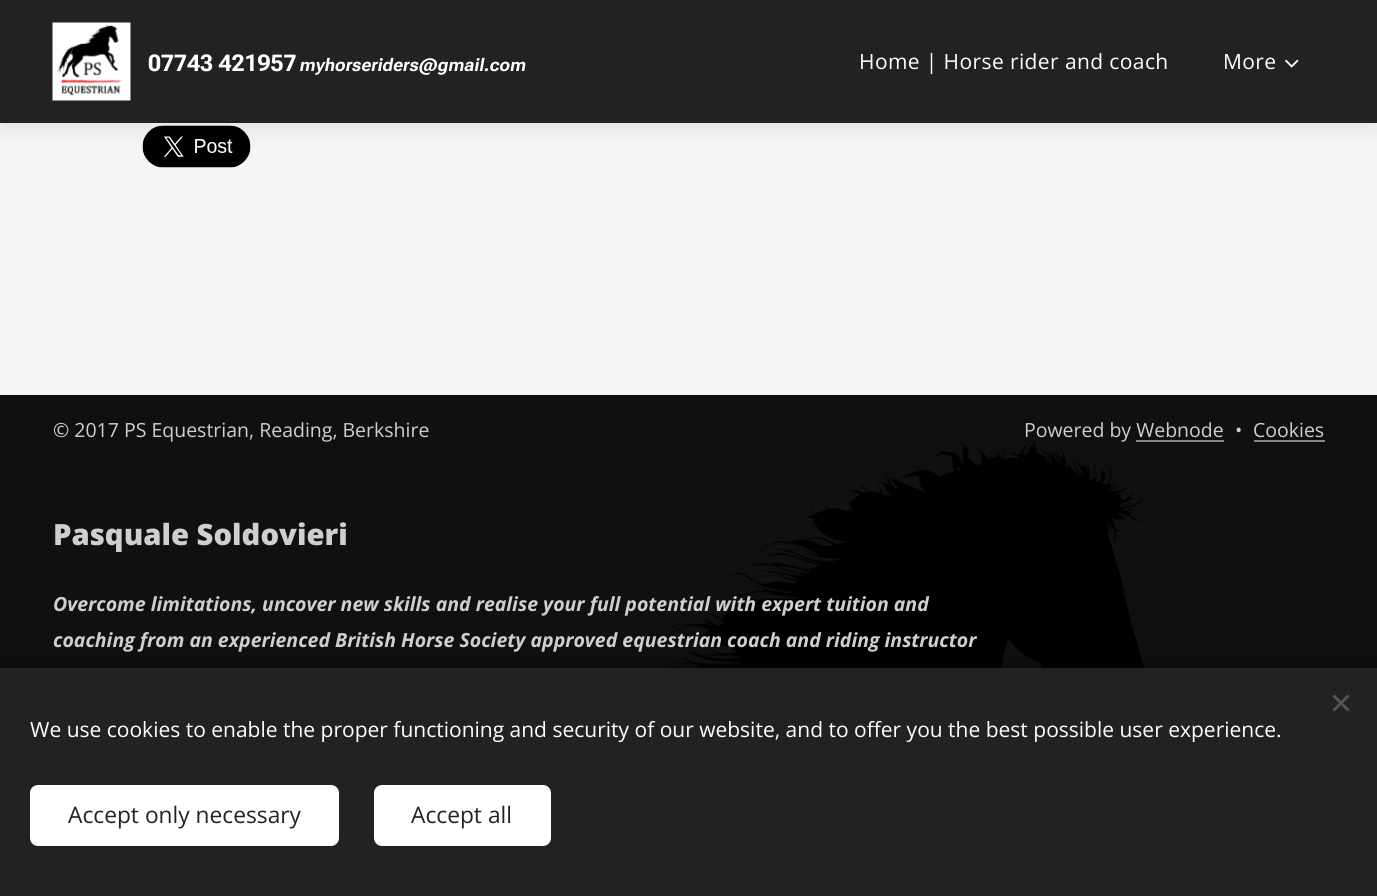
#include <cairo/cairo.h>
#include <math.h>
#include <stddef.h>

static cairo_t *cr;

static void use_color(int r, int g, int b) {
  cairo_set_source_rgb(cr, r / 255.0, g / 255.0, b / 255.0);
}

static void text(double x, double y, const char *s, const char *family, double size, int italic, int bold, int r, int g, int b) {
  cairo_select_font_face(cr, family, italic ? CAIRO_FONT_SLANT_ITALIC : CAIRO_FONT_SLANT_NORMAL,
    bold ? CAIRO_FONT_WEIGHT_BOLD : CAIRO_FONT_WEIGHT_NORMAL);
  cairo_set_font_size(cr, size);
  use_color(r, g, b);
  cairo_move_to(cr, x, y);
  cairo_show_text(cr, s);
}

static void spaced_text(double x, double y, const char *s, double letter, double word) {
  cairo_move_to(cr, x, y);
  while (*s) {
    char ch[5] = {0};
    int n = 0;
    do ch[n++] = *s++; while ((*s & 0xC0) == 0x80);
    cairo_show_text(cr, ch);
    cairo_rel_move_to(cr, letter + word * (*ch == ' '), 0);
  }
}

static void box(double x, double y, double w, double h, int r, int g, int b) {
  use_color(r, g, b);
  cairo_rectangle(cr, x, y, w, h);
  cairo_fill(cr);
}

static void round_rect(double x, double y, double w, double h, double r) {
  cairo_new_sub_path(cr);
  cairo_arc(cr, x + w - r, y + h - r, r, 0, M_PI / 2);
  cairo_arc(cr, x + r, y + h - r, r, M_PI / 2, M_PI);
  cairo_arc(cr, x + r, y + r, r, M_PI, 1.5 * M_PI);
  cairo_arc(cr, x + w - r, y + r, r, 1.5 * M_PI, 2 * M_PI);
  cairo_close_path(cr);
}

static void shadow(double x, double y, double w, double h, double r, double blur, double alpha) {
  cairo_push_group_with_content(cr, CAIRO_CONTENT_ALPHA);
  cairo_set_operator(cr, CAIRO_OPERATOR_SOURCE);
  for (int i = 15; i >= -15 && fmin(w, h) + blur * i / 3 > 0; i -= 2) {
    double e = blur * i / 6;
    cairo_set_source_rgba(cr, 0, 0, 0, alpha * erfc((i - 1) / 8.5) / 2);
    round_rect(x - e, y - e, w + 2 * e, h + 2 * e, fmax(0, fmin(r + e + blur * .6, fmin(w, h) / 2 + e)));
    cairo_fill(cr);
  }
  cairo_pattern_t *soft = cairo_pop_group(cr);
  cairo_mask(cr, soft);
  cairo_pattern_destroy(soft);
}

static void picture(const char *path, double x, double y, double w, double h) {
  cairo_surface_t *image = cairo_image_surface_create_from_png(path);
  cairo_save(cr);
  cairo_set_source_surface(cr, image, x, y);
  cairo_rectangle(cr, x, y, w, h);
  cairo_fill(cr);
  cairo_restore(cr);
  cairo_surface_destroy(image);
}

static void draw(void) {
  use_color(16, 16, 16);
  cairo_paint(cr);
  box(0, 123, 1377, 272, 245, 245, 245);
  picture("img_03.png", 142, 125, 109, 43);
  use_color(0, 0, 0);
  shadow(0, 8, 1377, 123, 0, 11, 0.07);
  box(0, 0, 1377, 123, 34, 34, 34);
  picture("img_01.png", 52, 22, 79, 79);
  picture("img_02.png", 1285, 59, 14, 9);
  box(1254, 440, 71, 2, 135, 135, 135);
  picture("img_04.png", 663, 441, 482, 227);
  use_color(0, 0, 0);
  shadow(0, 668, 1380, 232, 0, 19, 0.33);
  box(0, 668, 1377, 228, 34, 34, 34);
  use_color(85, 85, 85);
  cairo_new_path(cr);
  cairo_move_to(cr, 1332.5, 709.5);
  cairo_line_to(cr, 1347.5, 694.5);
  cairo_line_to(cr, 1349.5, 696.5);
  cairo_line_to(cr, 1334.5, 711.5);
  cairo_close_path(cr);
  cairo_fill(cr);
  cairo_new_path(cr);
  cairo_move_to(cr, 1334.5, 694.5);
  cairo_line_to(cr, 1349.5, 709.5);
  cairo_line_to(cr, 1347.5, 711.5);
  cairo_line_to(cr, 1332.5, 696.5);
  cairo_close_path(cr);
  cairo_fill(cr);
  use_color(255, 255, 255);
  round_rect(30, 785, 309, 61, 8);
  cairo_fill(cr);
  round_rect(374, 785, 177, 61, 8);
  cairo_fill(cr);
  text(148, 71, "07743 421957", "Roboto Flex", 23, 0, 1, 255, 255, 255);
  text(300, 71, "myhorseriders@gmail.com", "Roboto Flex", 17.6, 1, 1, 255, 255, 255);
  cairo_select_font_face(cr, "Open Sans", CAIRO_FONT_SLANT_NORMAL, CAIRO_FONT_WEIGHT_NORMAL);
  cairo_set_font_size(cr, 21);
  spaced_text(859, 69, "Home | Horse rider and coach", 0.4, 0);
  spaced_text(1223, 69, "More", 0.4, 0);
  text(53, 437, "© 2017 PS Equestrian, Reading, Berkshire", "Open Sans", 19.5, 0, 0, 207, 207, 207);
  text(53, 545, "Pasquale Soldovieri", "Open Sans ExtraBold", 29.25, 0, 0, 207, 207, 207);
  text(53, 611, "Overcome limitations, uncover new skills and realise your full potential with expert tuition and", "Open Sans", 19.5, 1, 1, 207, 207, 207);
  text(53, 647, "coaching from an experienced British Horse Society approved equestrian coach and riding instructor", "Open Sans", 19.5, 1, 1, 207, 207, 207);
  text(1024, 437, "Powered by Webnode", "Open Sans", 19.5, 0, 0, 207, 207, 207);
  box(1136, 440, 88, 2, 135, 135, 135);
  text(1235, 437, "•", "Open Sans", 19.5, 0, 0, 207, 207, 207);
  text(1253, 437, "Cookies", "Open Sans", 19.5, 0, 0, 207, 207, 207);
  text(30, 737, "We use cookies to enable the proper functioning and security of our website, and to offer you the best possible user experience.", "Open Sans", 21, 0, 0, 255, 255, 255);
  text(68, 823, "Accept only necessary", "Open Sans", 22.75, 0, 0, 34, 34, 34);
  text(411, 823, "Accept all", "Open Sans", 22.75, 0, 0, 34, 34, 34);
}

int main(void) {
  cairo_surface_t *surface = cairo_image_surface_create(CAIRO_FORMAT_RGB24, 1377, 896);
  cr = cairo_create(surface);
  cairo_font_options_t *options = cairo_font_options_create();
  cairo_font_options_set_hint_metrics(options, CAIRO_HINT_METRICS_OFF);
  cairo_font_options_set_hint_style(options, CAIRO_HINT_STYLE_NONE);
  cairo_set_font_options(cr, options);
  cairo_set_miter_limit(cr, 4);
  draw();
  cairo_surface_write_to_png(surface, "out.png");
  cairo_font_options_destroy(options);
  cairo_destroy(cr);
  cairo_surface_destroy(surface);
  return 0;
}
